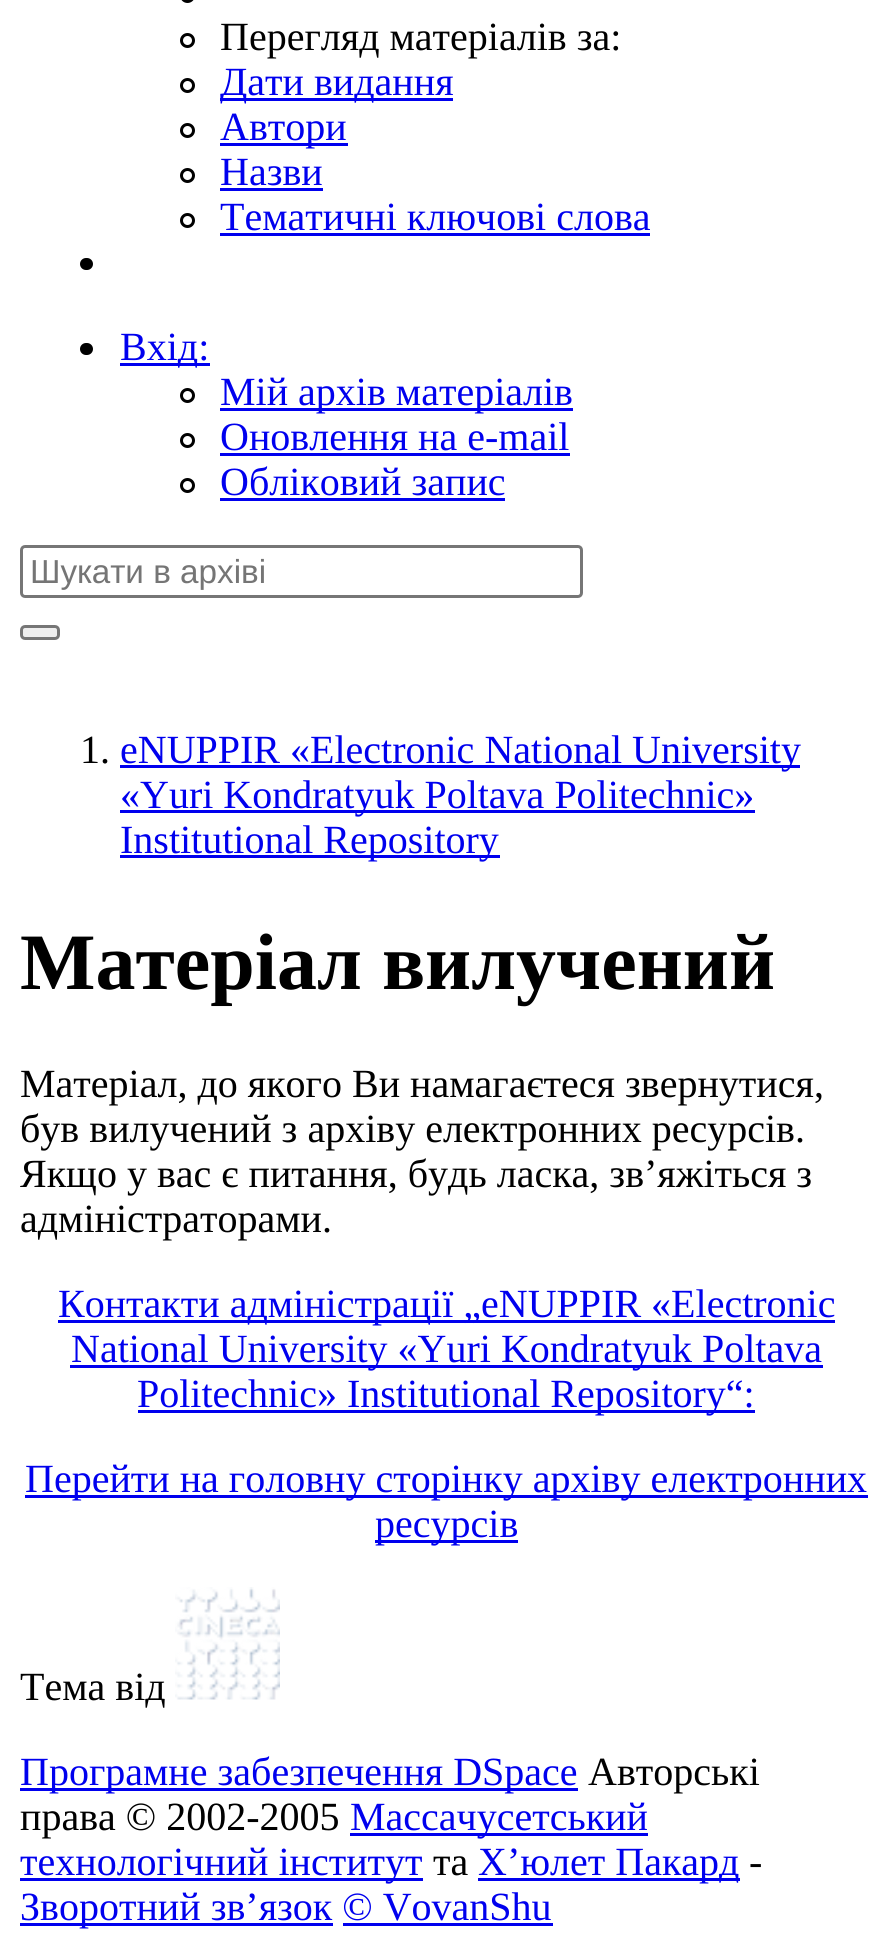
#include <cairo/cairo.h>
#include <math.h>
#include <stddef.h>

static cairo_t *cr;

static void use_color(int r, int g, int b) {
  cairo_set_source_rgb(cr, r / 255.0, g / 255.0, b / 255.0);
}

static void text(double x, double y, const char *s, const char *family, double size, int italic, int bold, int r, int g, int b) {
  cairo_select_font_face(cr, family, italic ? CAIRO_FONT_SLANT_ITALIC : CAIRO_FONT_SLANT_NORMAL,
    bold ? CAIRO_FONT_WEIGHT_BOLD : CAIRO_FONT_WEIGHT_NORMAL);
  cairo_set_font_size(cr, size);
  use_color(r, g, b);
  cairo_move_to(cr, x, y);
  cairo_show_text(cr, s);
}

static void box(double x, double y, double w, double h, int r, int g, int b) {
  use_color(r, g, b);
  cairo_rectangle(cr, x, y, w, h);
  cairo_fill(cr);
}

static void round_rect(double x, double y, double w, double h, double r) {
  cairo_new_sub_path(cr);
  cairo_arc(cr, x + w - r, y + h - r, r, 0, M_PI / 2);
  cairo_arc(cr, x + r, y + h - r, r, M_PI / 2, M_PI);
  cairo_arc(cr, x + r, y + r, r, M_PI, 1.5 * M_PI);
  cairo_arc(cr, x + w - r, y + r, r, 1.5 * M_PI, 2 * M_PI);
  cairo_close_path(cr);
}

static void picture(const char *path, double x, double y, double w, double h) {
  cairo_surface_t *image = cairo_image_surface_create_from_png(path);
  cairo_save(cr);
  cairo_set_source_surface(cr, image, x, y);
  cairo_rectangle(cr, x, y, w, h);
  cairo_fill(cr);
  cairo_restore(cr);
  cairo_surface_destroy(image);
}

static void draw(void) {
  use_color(255, 255, 255);
  cairo_paint(cr);
  round_rect(181.5, -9.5, 12, 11, 6);
  use_color(0, 0, 0);
  cairo_set_line_width(cr, 3);
  cairo_stroke(cr);
  cairo_arc(cr, 187.5, 40.5, 6, 0, 2 * M_PI);
  cairo_stroke(cr);
  cairo_arc(cr, 187.5, 85.5, 6, 0, 2 * M_PI);
  cairo_stroke(cr);
  box(220, 98, 233, 3, 0, 0, 238);
  cairo_arc(cr, 187.5, 130.5, 6, 0, 2 * M_PI);
  use_color(0, 0, 0);
  cairo_stroke(cr);
  box(220, 143, 128, 3, 0, 0, 238);
  cairo_arc(cr, 187.5, 175.5, 6, 0, 2 * M_PI);
  use_color(0, 0, 0);
  cairo_stroke(cr);
  box(220, 188, 103, 3, 0, 0, 238);
  cairo_arc(cr, 187.5, 220.5, 6, 0, 2 * M_PI);
  use_color(0, 0, 0);
  cairo_stroke(cr);
  box(220, 233, 430, 3, 0, 0, 238);
  use_color(0, 0, 0);
  round_rect(80, 258, 13, 12, 6);
  cairo_fill(cr);
  round_rect(80, 343, 13, 12, 6);
  cairo_fill(cr);
  box(120, 363, 90, 3, 0, 0, 238);
  cairo_arc(cr, 187.5, 395.5, 6, 0, 2 * M_PI);
  use_color(0, 0, 0);
  cairo_stroke(cr);
  box(220, 408, 353, 3, 0, 0, 238);
  cairo_arc(cr, 187.5, 440.5, 6, 0, 2 * M_PI);
  use_color(0, 0, 0);
  cairo_stroke(cr);
  box(220, 453, 350, 3, 0, 0, 238);
  cairo_arc(cr, 187.5, 485.5, 6, 0, 2 * M_PI);
  use_color(0, 0, 0);
  cairo_stroke(cr);
  box(220, 498, 285, 3, 0, 0, 238);
  round_rect(21.5, 546.5, 560, 50, 3.5);
  use_color(118, 118, 118);
  cairo_stroke(cr);
  use_color(239, 239, 239);
  round_rect(21.5, 626.5, 37, 12, 3.5);
  cairo_fill_preserve(cr);
  use_color(118, 118, 118);
  cairo_stroke(cr);
  box(120, 765, 680, 3, 0, 0, 238);
  box(120, 810, 635, 3, 0, 0, 238);
  box(120, 855, 380, 3, 0, 0, 238);
  box(58, 1320, 777, 3, 0, 0, 238);
  box(70, 1365, 753, 3, 0, 0, 238);
  box(138, 1410, 617, 3, 0, 0, 238);
  box(25, 1495, 843, 3, 0, 0, 238);
  box(375, 1540, 143, 3, 0, 0, 238);
  picture("img_01.png", 175, 1587, 105, 113);
  box(20, 1788, 558, 3, 0, 0, 238);
  box(350, 1833, 298, 3, 0, 0, 238);
  box(20, 1878, 403, 3, 0, 0, 238);
  box(478, 1878, 262, 3, 0, 0, 238);
  box(20, 1923, 313, 3, 0, 0, 238);
  box(343, 1923, 210, 3, 0, 0, 238);
  text(220, 50, "Перегляд матеріалів за:", "Liberation Serif", 40, 0, 0, 0, 0, 0);
  text(220, 95, "Дати видання", "Liberation Serif", 40, 0, 0, 0, 0, 238);
  text(220, 140, "Автори", "Liberation Serif", 40, 0, 0, 0, 0, 238);
  text(220, 185, "Назви", "Liberation Serif", 40, 0, 0, 0, 0, 238);
  text(220, 230, "Тематичні ключові слова", "Liberation Serif", 40, 0, 0, 0, 0, 238);
  text(120, 360, "Вхід:", "Liberation Serif", 40, 0, 0, 0, 0, 238);
  text(220, 405, "Мій архів матеріалів", "Liberation Serif", 40, 0, 0, 0, 0, 238);
  text(220, 450, "Оновлення на e-mail", "Liberation Serif", 40, 0, 0, 0, 0, 238);
  text(220, 495, "Обліковий запис", "Liberation Serif", 40, 0, 0, 0, 0, 238);
  text(30, 583, "Шукати в архіві", "Liberation Sans", 33.25, 0, 0, 117, 117, 117);
  text(80, 763, "1.", "Liberation Serif", 40, 0, 0, 0, 0, 0);
  text(120, 763, "eNUPPIR «Еlectronic National University", "Liberation Serif", 40, 0, 0, 0, 0, 238);
  text(120, 808, "«Yuri Kondratyuk Poltava Politechnic»", "Liberation Serif", 40, 0, 0, 0, 0, 238);
  text(120, 853, "Institutional Repository", "Liberation Serif", 40, 0, 0, 0, 0, 238);
  text(20, 989, "Матеріал вилучений", "Liberation Serif", 80, 0, 1, 0, 0, 0);
  text(20, 1097, "Матеріал, до якого Ви намагаєтеся звернутися,", "Liberation Serif", 40, 0, 0, 0, 0, 0);
  text(20, 1142, "був вилучений з архіву електронних ресурсів.", "Liberation Serif", 40, 0, 0, 0, 0, 0);
  text(20, 1187, "Якщо у вас є питання, будь ласка, зв’яжіться з", "Liberation Serif", 40, 0, 0, 0, 0, 0);
  text(20, 1232, "адміністраторами.", "Liberation Serif", 40, 0, 0, 0, 0, 0);
  text(58, 1317, "Контакти адміністрації „eNUPPIR «Еlectronic", "Liberation Serif", 40, 0, 0, 0, 0, 238);
  text(71, 1362, "National University «Yuri Kondratyuk Poltava", "Liberation Serif", 40, 0, 0, 0, 0, 238);
  text(137, 1407, "Politechnic» Institutional Repository“:", "Liberation Serif", 40, 0, 0, 0, 0, 238);
  text(25, 1492, "Перейти на головну сторінку архіву електронних", "Liberation Serif", 40, 0, 0, 0, 0, 238);
  text(375, 1537, "ресурсів", "Liberation Serif", 40, 0, 0, 0, 0, 238);
  text(20, 1700, "Тема від", "Liberation Serif", 40, 0, 0, 0, 0, 0);
  text(20, 1785, "Програмне забезпечення DSpace", "Liberation Serif", 40, 0, 0, 0, 0, 238);
  text(588, 1785, "Авторські", "Liberation Serif", 40, 0, 0, 0, 0, 0);
  text(20, 1830, "права © 2002-2005", "Liberation Serif", 40, 0, 0, 0, 0, 0);
  text(350, 1830, "Массачусетський", "Liberation Serif", 40, 0, 0, 0, 0, 238);
  text(20, 1875, "технологічний інститут", "Liberation Serif", 40, 0, 0, 0, 0, 238);
  text(433, 1875, "та", "Liberation Serif", 40, 0, 0, 0, 0, 0);
  text(478, 1875, "Х’юлет Пакард", "Liberation Serif", 40, 0, 0, 0, 0, 238);
  text(749, 1875, "-", "Liberation Serif", 40, 0, 0, 0, 0, 0);
  text(20, 1920, "Зворотний зв’язок © VovanShu", "Liberation Serif", 40, 0, 0, 0, 0, 238);
}

int main(void) {
  cairo_surface_t *surface = cairo_image_surface_create(CAIRO_FORMAT_RGB24, 891, 1951);
  cr = cairo_create(surface);
  cairo_font_options_t *options = cairo_font_options_create();
  cairo_font_options_set_hint_metrics(options, CAIRO_HINT_METRICS_OFF);
  cairo_font_options_set_hint_style(options, CAIRO_HINT_STYLE_NONE);
  cairo_set_font_options(cr, options);
  cairo_set_miter_limit(cr, 4);
  draw();
  cairo_surface_write_to_png(surface, "out.png");
  cairo_font_options_destroy(options);
  cairo_destroy(cr);
  cairo_surface_destroy(surface);
  return 0;
}
